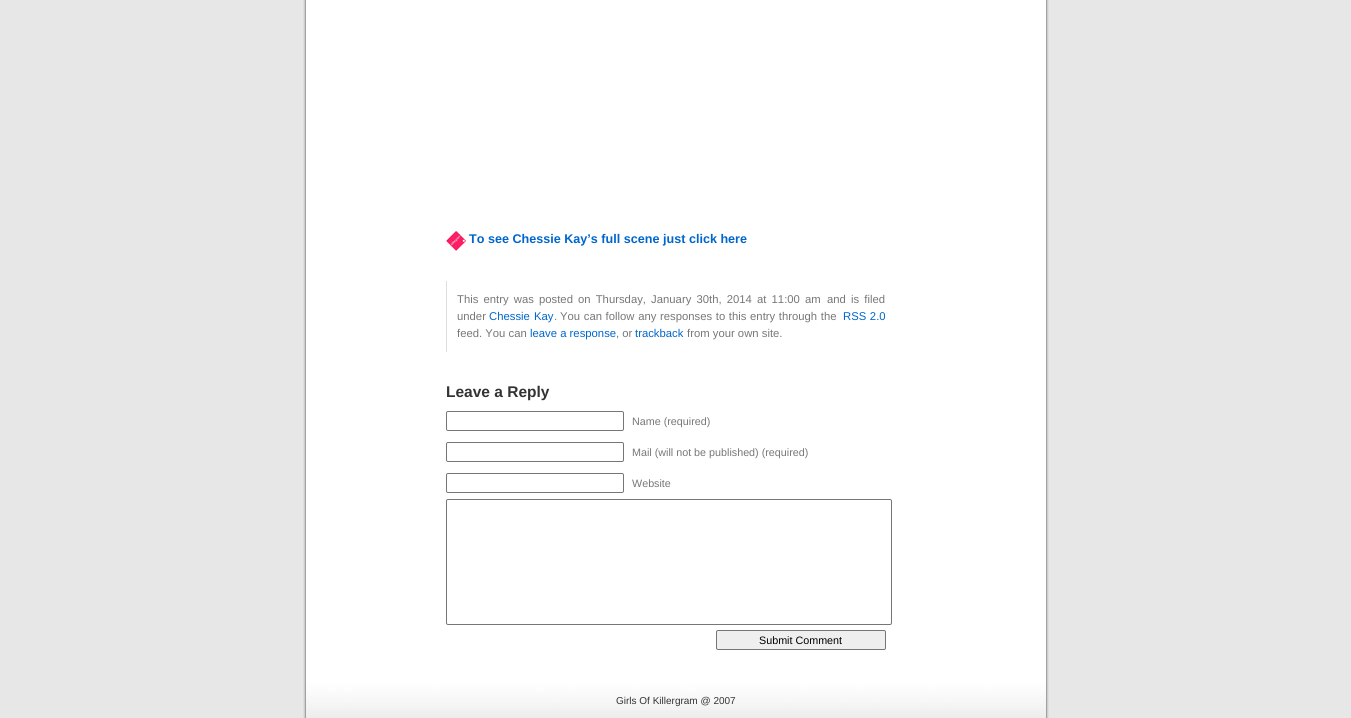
#include <cairo/cairo.h>
#include <math.h>
#include <stddef.h>

static cairo_t *cr;

static void use_color(int r, int g, int b) {
  cairo_set_source_rgb(cr, r / 255.0, g / 255.0, b / 255.0);
}

static void text(double x, double y, const char *s, const char *family, double size, int italic, int bold, int r, int g, int b) {
  cairo_select_font_face(cr, family, italic ? CAIRO_FONT_SLANT_ITALIC : CAIRO_FONT_SLANT_NORMAL,
    bold ? CAIRO_FONT_WEIGHT_BOLD : CAIRO_FONT_WEIGHT_NORMAL);
  cairo_set_font_size(cr, size);
  use_color(r, g, b);
  cairo_move_to(cr, x, y);
  cairo_show_text(cr, s);
}

static void spaced_text(double x, double y, const char *s, double letter, double word) {
  cairo_move_to(cr, x, y);
  while (*s) {
    char ch[5] = {0};
    int n = 0;
    do ch[n++] = *s++; while ((*s & 0xC0) == 0x80);
    cairo_show_text(cr, ch);
    cairo_rel_move_to(cr, letter + word * (*ch == ' '), 0);
  }
}

static void box(double x, double y, double w, double h, int r, int g, int b) {
  use_color(r, g, b);
  cairo_rectangle(cr, x, y, w, h);
  cairo_fill(cr);
}

static void round_rect(double x, double y, double w, double h, double r) {
  cairo_new_sub_path(cr);
  cairo_arc(cr, x + w - r, y + h - r, r, 0, M_PI / 2);
  cairo_arc(cr, x + r, y + h - r, r, M_PI / 2, M_PI);
  cairo_arc(cr, x + r, y + r, r, M_PI, 1.5 * M_PI);
  cairo_arc(cr, x + w - r, y + r, r, 1.5 * M_PI, 2 * M_PI);
  cairo_close_path(cr);
}

static void picture(const char *path, double x, double y, double w, double h) {
  cairo_surface_t *image = cairo_image_surface_create_from_png(path);
  cairo_save(cr);
  cairo_set_source_surface(cr, image, x, y);
  cairo_rectangle(cr, x, y, w, h);
  cairo_fill(cr);
  cairo_restore(cr);
  cairo_surface_destroy(image);
}

static void draw(void) {
  use_color(231, 231, 231);
  cairo_paint(cr);
  picture("img_01.png", 303, 0, 746, 675);
  picture("img_02.png", 446, 231, 20, 20);
  box(446, 281, 1, 71, 221, 221, 221);
  round_rect(446.5, 411.5, 177, 19, 1.5);
  use_color(118, 118, 118);
  cairo_set_line_width(cr, 1);
  cairo_stroke(cr);
  round_rect(446.5, 442.5, 177, 19, 1.5);
  cairo_stroke(cr);
  round_rect(446.5, 473.5, 177, 19, 1.5);
  cairo_stroke(cr);
  round_rect(446.5, 499.5, 445, 125, 1.5);
  cairo_stroke(cr);
  use_color(239, 239, 239);
  round_rect(716.5, 630.5, 169, 19, 1.5);
  cairo_fill_preserve(cr);
  use_color(118, 118, 118);
  cairo_stroke(cr);
  picture("img_03.png", 303, 675, 746, 43);
  text(469, 243, "To see Chessie Kay’s full scene just click here", "Liberation Sans", 12.6, 0, 1, 0, 102, 204);
  cairo_select_font_face(cr, "Liberation Sans", CAIRO_FONT_SLANT_NORMAL, CAIRO_FONT_WEIGHT_NORMAL);
  cairo_set_font_size(cr, 11.3);
  use_color(119, 119, 119);
  spaced_text(457, 303, "This entry was posted", 0, 2);
  spaced_text(578, 303, "on Thursday, January 30th, 2014 at 11:00 am", 0, 2);
  spaced_text(827, 303, "and is filed", 0, 2);
  text(457, 320, "under", "Liberation Sans", 11.3, 0, 0, 119, 119, 119);
  use_color(0, 102, 204);
  spaced_text(489, 320, "Chessie Kay", 0, 1);
  text(554, 320, ".", "Liberation Sans", 11.3, 0, 0, 119, 119, 119);
  spaced_text(560, 320, "You can follow any responses to this entry through the", 0, 0.5);
  use_color(0, 102, 204);
  spaced_text(843, 320, "RSS 2.0", 0, 0.5);
  text(457, 337, "feed. You can", "Liberation Sans", 11.3, 0, 0, 119, 119, 119);
  text(530, 337, "leave a response", "Liberation Sans", 11.3, 0, 0, 0, 102, 204);
  text(616, 337, ", or", "Liberation Sans", 11.3, 0, 0, 119, 119, 119);
  text(635, 337, "trackback", "Liberation Sans", 11.3, 0, 0, 0, 102, 204);
  text(687, 337, "from your own site.", "Liberation Sans", 11.3, 0, 0, 119, 119, 119);
  text(446, 397, "Leave a Reply", "Liberation Sans", 15.5, 0, 1, 51, 51, 51);
  text(632, 425, "Name (required)", "Liberation Sans", 10.75, 0, 0, 119, 119, 119);
  text(632, 456, "Mail (will not be published) (required)", "Liberation Sans", 10.75, 0, 0, 119, 119, 119);
  text(632, 487, "Website", "Liberation Sans", 10.75, 0, 0, 119, 119, 119);
  text(759, 644, "Submit Comment", "Liberation Sans", 10.75, 0, 0, 0, 0, 0);
  text(616, 704, "Girls Of Killergram @ 2007", "Liberation Sans", 10, 0, 0, 51, 51, 51);
}

int main(void) {
  cairo_surface_t *surface = cairo_image_surface_create(CAIRO_FORMAT_RGB24, 1351, 718);
  cr = cairo_create(surface);
  cairo_font_options_t *options = cairo_font_options_create();
  cairo_font_options_set_hint_metrics(options, CAIRO_HINT_METRICS_OFF);
  cairo_font_options_set_hint_style(options, CAIRO_HINT_STYLE_NONE);
  cairo_set_font_options(cr, options);
  cairo_set_miter_limit(cr, 4);
  draw();
  cairo_surface_write_to_png(surface, "out.png");
  cairo_font_options_destroy(options);
  cairo_destroy(cr);
  cairo_surface_destroy(surface);
  return 0;
}
